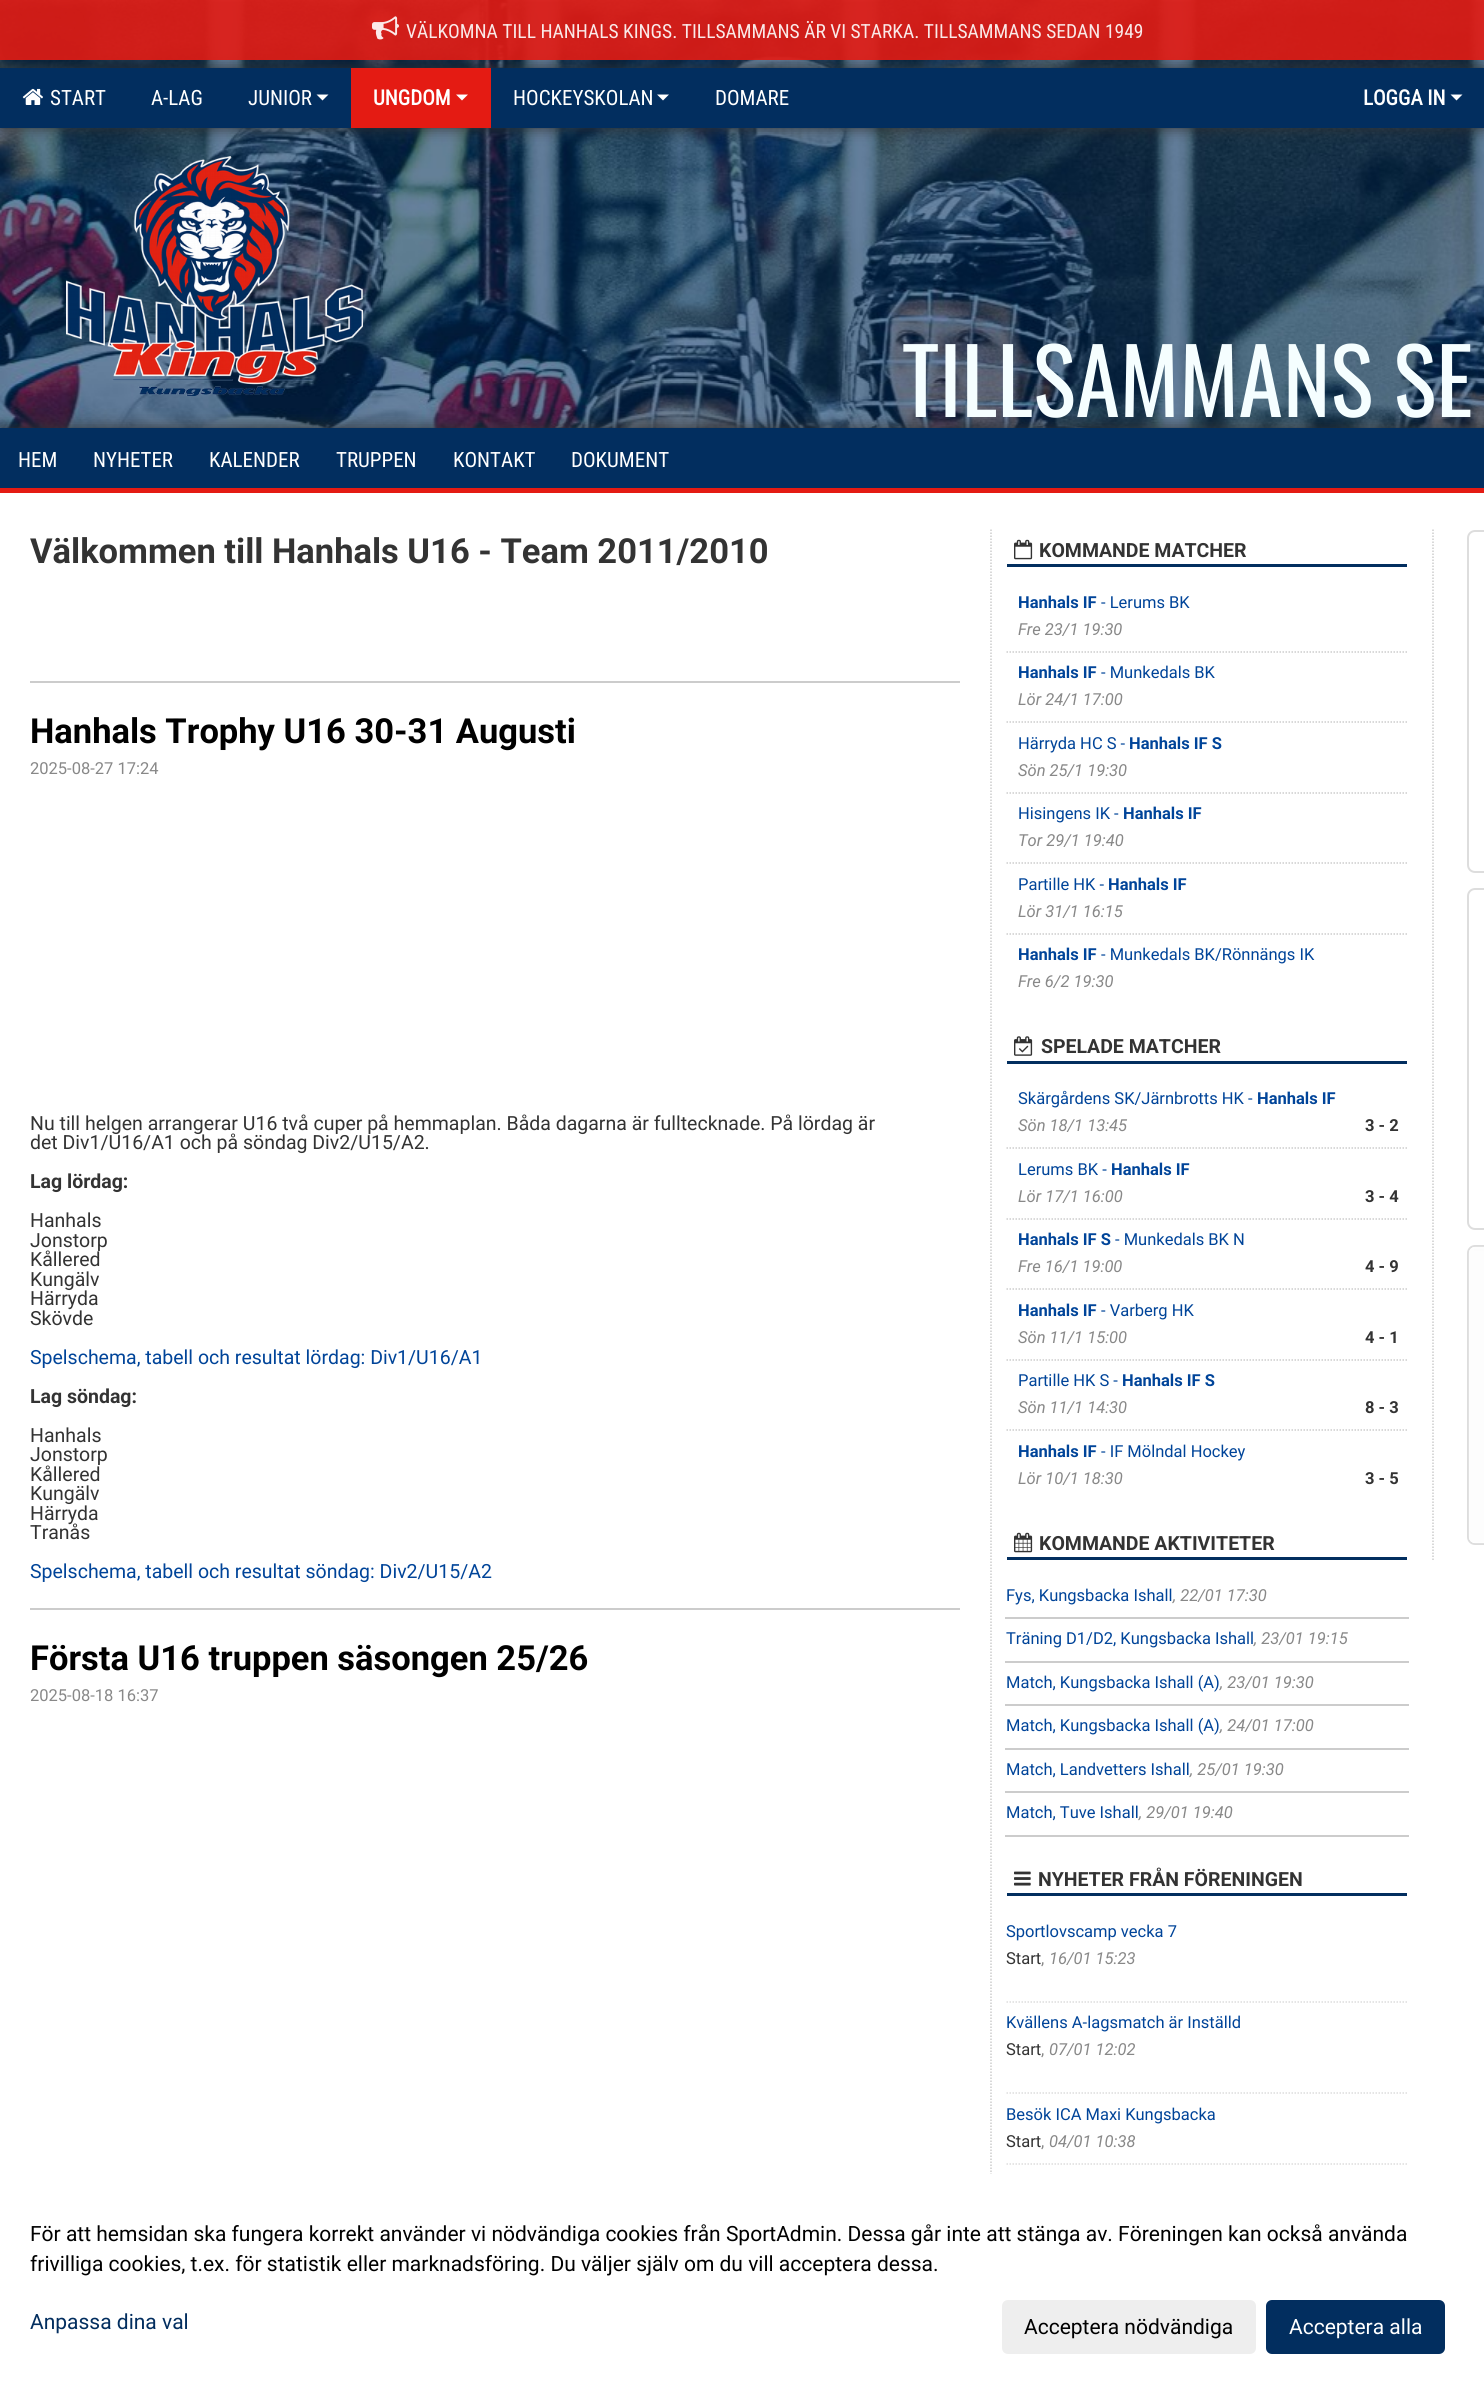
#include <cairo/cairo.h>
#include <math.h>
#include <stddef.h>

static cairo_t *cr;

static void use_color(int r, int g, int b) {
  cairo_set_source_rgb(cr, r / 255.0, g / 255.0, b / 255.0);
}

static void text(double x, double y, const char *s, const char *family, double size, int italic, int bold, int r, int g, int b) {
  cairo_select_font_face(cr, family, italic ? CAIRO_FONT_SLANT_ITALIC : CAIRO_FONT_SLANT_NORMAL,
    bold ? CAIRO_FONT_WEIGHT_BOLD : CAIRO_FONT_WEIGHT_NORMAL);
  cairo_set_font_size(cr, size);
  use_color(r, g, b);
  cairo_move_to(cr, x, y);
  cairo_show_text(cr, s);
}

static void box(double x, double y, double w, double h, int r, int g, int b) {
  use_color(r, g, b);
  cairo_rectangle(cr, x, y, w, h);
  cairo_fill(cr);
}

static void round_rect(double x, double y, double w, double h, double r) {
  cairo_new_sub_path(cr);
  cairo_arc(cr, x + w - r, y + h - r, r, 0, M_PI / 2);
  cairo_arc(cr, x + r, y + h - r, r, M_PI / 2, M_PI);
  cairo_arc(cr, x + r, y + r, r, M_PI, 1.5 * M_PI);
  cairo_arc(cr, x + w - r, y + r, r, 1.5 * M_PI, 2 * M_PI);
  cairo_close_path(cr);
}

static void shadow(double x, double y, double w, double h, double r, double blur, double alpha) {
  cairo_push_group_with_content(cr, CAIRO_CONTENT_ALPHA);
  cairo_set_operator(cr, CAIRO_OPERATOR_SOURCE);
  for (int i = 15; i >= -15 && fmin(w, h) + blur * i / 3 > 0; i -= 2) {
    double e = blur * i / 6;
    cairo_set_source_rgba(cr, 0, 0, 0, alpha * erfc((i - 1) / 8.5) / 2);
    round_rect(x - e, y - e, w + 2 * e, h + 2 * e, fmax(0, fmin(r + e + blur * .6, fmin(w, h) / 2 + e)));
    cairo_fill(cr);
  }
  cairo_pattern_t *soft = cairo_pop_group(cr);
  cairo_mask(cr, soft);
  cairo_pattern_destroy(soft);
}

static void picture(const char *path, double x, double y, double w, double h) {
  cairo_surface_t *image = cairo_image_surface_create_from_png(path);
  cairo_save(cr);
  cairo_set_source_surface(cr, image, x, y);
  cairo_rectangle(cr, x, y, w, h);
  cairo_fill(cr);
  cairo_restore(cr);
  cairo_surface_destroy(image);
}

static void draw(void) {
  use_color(255, 255, 255);
  cairo_paint(cr);
  picture("img_01.png", 0, 0, 1484, 428);
  use_color(51, 51, 51);
  shadow(0, 68, 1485, 60, 0, 7.5, 1);
  cairo_set_source_rgba(cr, 0.894, 0.106, 0.075, 0.9);
  cairo_rectangle(cr, 0, 0, 1484, 60);
  cairo_fill(cr);
  picture("img_02.png", 372, 16, 27, 24);
  box(0, 68, 1484, 60, 2, 46, 95);
  picture("img_03.png", 22, 88, 21, 17);
  use_color(255, 255, 255);
  cairo_new_path(cr);
  cairo_move_to(cr, 316.5, 94.5);
  cairo_line_to(cr, 328.5, 94.5);
  cairo_line_to(cr, 322.5, 100.5);
  cairo_close_path(cr);
  cairo_fill(cr);
  box(351, 68, 140, 60, 228, 27, 19);
  use_color(255, 255, 255);
  cairo_new_path(cr);
  cairo_move_to(cr, 456, 94.5);
  cairo_line_to(cr, 468, 94.5);
  cairo_line_to(cr, 462, 100.5);
  cairo_close_path(cr);
  cairo_fill(cr);
  cairo_new_path(cr);
  cairo_move_to(cr, 657, 94.5);
  cairo_line_to(cr, 669, 94.5);
  cairo_line_to(cr, 663, 100.5);
  cairo_close_path(cr);
  cairo_fill(cr);
  cairo_new_path(cr);
  cairo_move_to(cr, 1450.5, 94.5);
  cairo_line_to(cr, 1462.5, 94.5);
  cairo_line_to(cr, 1456.5, 100.5);
  cairo_close_path(cr);
  cairo_fill(cr);
  picture("img_04.png", 66, 156, 297, 240);
  use_color(51, 51, 51);
  shadow(0, 428, 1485, 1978, 0, 7.5, 1);
  box(0, 493, 1484, 1681, 255, 255, 255);
  box(0, 428, 1484, 60, 2, 46, 95);
  box(0, 488, 1484, 5, 228, 27, 19);
  box(30, 681, 930, 2, 204, 204, 204);
  box(30, 1608, 930, 2, 204, 204, 204);
  cairo_new_path(cr);
  cairo_move_to(cr, 991, 529.5);
  cairo_line_to(cr, 991, 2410.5);
  cairo_set_line_width(cr, 1.5);
  cairo_set_dash(cr, (double[]){1.5, 1.5}, 2, 0);
  cairo_stroke(cr);
  box(1007, 564, 400, 3, 2, 46, 95);
  picture("img_05.png", 1014, 539, 19, 21);
  cairo_new_path(cr);
  cairo_move_to(cr, 1006.5, 652);
  cairo_line_to(cr, 1407, 652);
  use_color(204, 204, 204);
  cairo_stroke(cr);
  cairo_new_path(cr);
  cairo_move_to(cr, 1006.5, 722);
  cairo_line_to(cr, 1407, 722);
  cairo_stroke(cr);
  cairo_new_path(cr);
  cairo_move_to(cr, 1006.5, 793);
  cairo_line_to(cr, 1407, 793);
  cairo_stroke(cr);
  cairo_new_path(cr);
  cairo_move_to(cr, 1006.5, 863);
  cairo_line_to(cr, 1407, 863);
  cairo_stroke(cr);
  cairo_new_path(cr);
  cairo_move_to(cr, 1006.5, 934);
  cairo_line_to(cr, 1407, 934);
  cairo_stroke(cr);
  box(1007, 1061, 400, 3, 2, 46, 95);
  picture("img_06.png", 1014, 1036, 19, 20);
  cairo_new_path(cr);
  cairo_move_to(cr, 1006.5, 1148);
  cairo_line_to(cr, 1407, 1148);
  use_color(204, 204, 204);
  cairo_stroke(cr);
  cairo_new_path(cr);
  cairo_move_to(cr, 1006.5, 1219);
  cairo_line_to(cr, 1407, 1219);
  cairo_stroke(cr);
  cairo_new_path(cr);
  cairo_move_to(cr, 1006.5, 1289);
  cairo_line_to(cr, 1407, 1289);
  cairo_stroke(cr);
  cairo_new_path(cr);
  cairo_move_to(cr, 1006.5, 1360);
  cairo_line_to(cr, 1407, 1360);
  cairo_stroke(cr);
  cairo_new_path(cr);
  cairo_move_to(cr, 1006.5, 1430);
  cairo_line_to(cr, 1407, 1430);
  cairo_stroke(cr);
  box(1007, 1557, 400, 3, 2, 46, 95);
  picture("img_07.png", 1014, 1532, 19, 21);
  box(1005, 1617, 404, 2, 204, 204, 204);
  box(1005, 1661, 404, 2, 204, 204, 204);
  box(1005, 1704, 404, 2, 204, 204, 204);
  box(1005, 1748, 404, 2, 204, 204, 204);
  box(1005, 1791, 404, 2, 204, 204, 204);
  box(1005, 1835, 404, 2, 204, 204, 204);
  box(1007, 1893, 400, 3, 2, 46, 95);
  picture("img_08.png", 1014, 1871, 17, 15);
  cairo_new_path(cr);
  cairo_move_to(cr, 1006.5, 2002);
  cairo_line_to(cr, 1407, 2002);
  use_color(221, 221, 221);
  cairo_stroke(cr);
  cairo_new_path(cr);
  cairo_move_to(cr, 1006.5, 2093);
  cairo_line_to(cr, 1407, 2093);
  cairo_stroke(cr);
  cairo_new_path(cr);
  cairo_move_to(cr, 1006.5, 2164);
  cairo_line_to(cr, 1407, 2164);
  cairo_stroke(cr);
  cairo_new_path(cr);
  cairo_move_to(cr, 1433, 529.5);
  cairo_line_to(cr, 1433, 1560);
  use_color(204, 204, 204);
  cairo_stroke(cr);
  round_rect(1468, 531, 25, 341, 7);
  use_color(221, 221, 221);
  cairo_set_line_width(cr, 2);
  cairo_set_dash(cr, NULL, 0, 0);
  cairo_stroke(cr);
  round_rect(1468, 889, 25, 340, 7);
  cairo_stroke(cr);
  round_rect(1468, 1246, 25, 298, 7);
  cairo_stroke(cr);
  picture("img_09.png", 1468, 1246, 16, 298);
  box(0, 2174, 1484, 209, 255, 255, 255);
  use_color(238, 238, 238);
  round_rect(1002, 2300, 254, 54, 6);
  cairo_fill(cr);
  use_color(2, 46, 95);
  round_rect(1266, 2300, 179, 54, 6);
  cairo_fill(cr);
  text(406, 38, "VÄLKOMNA TILL HANHALS KINGS. TILLSAMMANS ÄR VI STARKA. TILLSAMMANS SEDAN 1949", "Roboto Condensed", 19.5, 0, 0, 250, 233, 232);
  text(50, 105, "START", "Roboto Condensed", 21, 0, 0, 255, 255, 255);
  text(151, 105, "A-LAG", "Roboto Condensed", 21, 0, 0, 255, 255, 255);
  text(248, 105, "JUNIOR", "Roboto Condensed", 21, 0, 0, 255, 255, 255);
  text(373, 105, "UNGDOM", "Roboto Condensed", 21, 0, 1, 255, 255, 255);
  text(513, 105, "HOCKEYSKOLAN", "Roboto Condensed", 21, 0, 0, 255, 255, 255);
  text(715, 105, "DOMARE", "Roboto Condensed", 21, 0, 0, 255, 255, 255);
  text(1363, 105, "LOGGA IN", "Roboto Condensed", 21, 0, 1, 255, 255, 255);
  text(902, 417, "TILLSAMMANS SE", "Oswald", 90, 0, 0, 245, 254, 255);
  text(18, 467, "HEM", "Roboto Condensed", 21, 0, 0, 255, 255, 255);
  text(93, 467, "NYHETER", "Roboto Condensed", 21, 0, 0, 255, 255, 255);
  text(209, 467, "KALENDER", "Roboto Condensed", 21, 0, 0, 255, 255, 255);
  text(336, 467, "TRUPPEN", "Roboto Condensed", 21, 0, 0, 255, 255, 255);
  text(453, 467, "KONTAKT", "Roboto Condensed", 21, 0, 0, 255, 255, 255);
  text(571, 467, "DOKUMENT", "Roboto Condensed", 21, 0, 0, 255, 255, 255);
  text(30, 563, "Välkommen till Hanhals U16 - Team 2011/2010", "Roboto", 34.5, 0, 1, 51, 51, 51);
  text(30, 743, "Hanhals Trophy U16 30-31 Augusti", "Roboto", 34.5, 0, 1, 0, 0, 0);
  text(30, 774, "2025-08-27 17:24", "Roboto", 16.5, 0, 0, 136, 136, 136);
  text(30, 1130, "Nu till helgen arrangerar U16 två cuper på hemmaplan. Båda dagarna är fulltecknade. På lördag är", "Roboto", 19.5, 0, 0, 51, 51, 51);
  text(30, 1149, "det Div1/U16/A1 och på söndag Div2/U15/A2.", "Roboto", 19.5, 0, 0, 51, 51, 51);
  text(30, 1188, "Lag lördag:", "Roboto", 19.5, 0, 1, 51, 51, 51);
  text(30, 1227, "Hanhals", "Roboto", 19.5, 0, 0, 51, 51, 51);
  text(30, 1247, "Jonstorp", "Roboto", 19.5, 0, 0, 51, 51, 51);
  text(30, 1266, "Kållered", "Roboto", 19.5, 0, 0, 51, 51, 51);
  text(30, 1286, "Kungälv", "Roboto", 19.5, 0, 0, 51, 51, 51);
  text(30, 1305, "Härryda", "Roboto", 19.5, 0, 0, 51, 51, 51);
  text(30, 1325, "Skövde", "Roboto", 19.5, 0, 0, 51, 51, 51);
  text(30, 1364, "Spelschema, tabell och resultat lördag: Div1/U16/A1", "Roboto", 19.5, 0, 0, 0, 68, 153);
  text(30, 1403, "Lag söndag:", "Roboto", 19.5, 0, 1, 51, 51, 51);
  text(30, 1442, "Hanhals", "Roboto", 19.5, 0, 0, 51, 51, 51);
  text(30, 1461, "Jonstorp", "Roboto", 19.5, 0, 0, 51, 51, 51);
  text(30, 1481, "Kållered", "Roboto", 19.5, 0, 0, 51, 51, 51);
  text(30, 1500, "Kungälv", "Roboto", 19.5, 0, 0, 51, 51, 51);
  text(30, 1520, "Härryda", "Roboto", 19.5, 0, 0, 51, 51, 51);
  text(30, 1539, "Tranås", "Roboto", 19.5, 0, 0, 51, 51, 51);
  text(30, 1578, "Spelschema, tabell och resultat söndag: Div2/U15/A2", "Roboto", 19.5, 0, 0, 0, 68, 153);
  text(30, 1670, "Första U16 truppen säsongen 25/26", "Roboto", 34.5, 0, 1, 0, 0, 0);
  text(30, 1701, "2025-08-18 16:37", "Roboto", 16.5, 0, 0, 136, 136, 136);
  text(1039, 557, "KOMMANDE MATCHER", "Roboto", 19.5, 0, 1, 51, 51, 51);
  text(1018, 608, "Hanhals IF", "Roboto", 16.5, 0, 1, 0, 68, 153);
  text(1101, 608, "- Lerums BK", "Roboto", 16.5, 0, 0, 0, 68, 153);
  text(1018, 635, "Fre 23/1 19:30", "Roboto", 16.5, 1, 0, 136, 136, 136);
  text(1018, 678, "Hanhals IF", "Roboto", 16.5, 0, 1, 0, 68, 153);
  text(1101, 678, "- Munkedals BK", "Roboto", 16.5, 0, 0, 0, 68, 153);
  text(1018, 705, "Lör 24/1 17:00", "Roboto", 16.5, 1, 0, 136, 136, 136);
  text(1018, 749, "Härryda HC S -", "Roboto", 16.5, 0, 0, 0, 68, 153);
  text(1129, 749, "Hanhals IF S", "Roboto", 16.5, 0, 1, 0, 68, 153);
  text(1018, 776, "Sön 25/1 19:30", "Roboto", 16.5, 1, 0, 136, 136, 136);
  text(1018, 819, "Hisingens IK -", "Roboto", 16.5, 0, 0, 0, 68, 153);
  text(1123, 819, "Hanhals IF", "Roboto", 16.5, 0, 1, 0, 68, 153);
  text(1018, 846, "Tor 29/1 19:40", "Roboto", 16.5, 1, 0, 136, 136, 136);
  text(1018, 890, "Partille HK -", "Roboto", 16.5, 0, 0, 0, 68, 153);
  text(1108, 890, "Hanhals IF", "Roboto", 16.5, 0, 1, 0, 68, 153);
  text(1018, 917, "Lör 31/1 16:15", "Roboto", 16.5, 1, 0, 136, 136, 136);
  text(1018, 960, "Hanhals IF", "Roboto", 16.5, 0, 1, 0, 68, 153);
  text(1101, 960, "- Munkedals BK/Rönnängs IK", "Roboto", 16.5, 0, 0, 0, 68, 153);
  text(1018, 987, "Fre 6/2 19:30", "Roboto", 16.5, 1, 0, 136, 136, 136);
  text(1041, 1053, "SPELADE MATCHER", "Roboto", 19.5, 0, 1, 51, 51, 51);
  text(1018, 1104, "Skärgårdens SK/Järnbrotts HK -", "Roboto", 16.5, 0, 0, 0, 68, 153);
  text(1257, 1104, "Hanhals IF", "Roboto", 16.5, 0, 1, 0, 68, 153);
  text(1018, 1131, "Sön 18/1 13:45", "Roboto", 16.5, 1, 0, 136, 136, 136);
  text(1365, 1131, "3 - 2", "Roboto", 16.5, 0, 1, 51, 51, 51);
  text(1018, 1175, "Lerums BK -", "Roboto", 16.5, 0, 0, 0, 68, 153);
  text(1111, 1175, "Hanhals IF", "Roboto", 16.5, 0, 1, 0, 68, 153);
  text(1018, 1202, "Lör 17/1 16:00", "Roboto", 16.5, 1, 0, 136, 136, 136);
  text(1365, 1202, "3 - 4", "Roboto", 16.5, 0, 1, 51, 51, 51);
  text(1018, 1245, "Hanhals IF S", "Roboto", 16.5, 0, 1, 0, 68, 153);
  text(1115, 1245, "- Munkedals BK N", "Roboto", 16.5, 0, 0, 0, 68, 153);
  text(1018, 1272, "Fre 16/1 19:00", "Roboto", 16.5, 1, 0, 136, 136, 136);
  text(1365, 1272, "4 - 9", "Roboto", 16.5, 0, 1, 51, 51, 51);
  text(1018, 1316, "Hanhals IF", "Roboto", 16.5, 0, 1, 0, 68, 153);
  text(1101, 1316, "- Varberg HK", "Roboto", 16.5, 0, 0, 0, 68, 153);
  text(1018, 1343, "Sön 11/1 15:00", "Roboto", 16.5, 1, 0, 136, 136, 136);
  text(1365, 1343, "4 - 1", "Roboto", 16.5, 0, 1, 51, 51, 51);
  text(1018, 1386, "Partille HK S -", "Roboto", 16.5, 0, 0, 0, 68, 153);
  text(1122, 1386, "Hanhals IF S", "Roboto", 16.5, 0, 1, 0, 68, 153);
  text(1018, 1413, "Sön 11/1 14:30", "Roboto", 16.5, 1, 0, 136, 136, 136);
  text(1365, 1413, "8 - 3", "Roboto", 16.5, 0, 1, 51, 51, 51);
  text(1018, 1457, "Hanhals IF", "Roboto", 16.5, 0, 1, 0, 68, 153);
  text(1101, 1457, "- IF Mölndal Hockey", "Roboto", 16.5, 0, 0, 0, 68, 153);
  text(1018, 1484, "Lör 10/1 18:30", "Roboto", 16.5, 1, 0, 136, 136, 136);
  text(1365, 1484, "3 - 5", "Roboto", 16.5, 0, 1, 51, 51, 51);
  text(1039, 1550, "KOMMANDE AKTIVITETER", "Roboto", 19.5, 0, 1, 51, 51, 51);
  text(1006, 1601, "Fys, Kungsbacka Ishall", "Roboto", 16.5, 0, 0, 0, 68, 153);
  text(1173, 1601, ", 22/01 17:30", "Roboto", 16.5, 1, 0, 136, 136, 136);
  text(1006, 1644, "Träning D1/D2, Kungsbacka Ishall", "Roboto", 16.5, 0, 0, 0, 68, 153);
  text(1254, 1644, ", 23/01 19:15", "Roboto", 16.5, 1, 0, 136, 136, 136);
  text(1006, 1688, "Match, Kungsbacka Ishall (A)", "Roboto", 16.5, 0, 0, 0, 68, 153);
  text(1220, 1688, ", 23/01 19:30", "Roboto", 16.5, 1, 0, 136, 136, 136);
  text(1006, 1731, "Match, Kungsbacka Ishall (A)", "Roboto", 16.5, 0, 0, 0, 68, 153);
  text(1220, 1731, ", 24/01 17:00", "Roboto", 16.5, 1, 0, 136, 136, 136);
  text(1006, 1775, "Match, Landvetters Ishall", "Roboto", 16.5, 0, 0, 0, 68, 153);
  text(1190, 1775, ", 25/01 19:30", "Roboto", 16.5, 1, 0, 136, 136, 136);
  text(1006, 1818, "Match, Tuve Ishall", "Roboto", 16.5, 0, 0, 0, 68, 153);
  text(1139, 1818, ", 29/01 19:40", "Roboto", 16.5, 1, 0, 136, 136, 136);
  text(1038, 1886, "NYHETER FRÅN FÖRENINGEN", "Roboto", 19.5, 0, 1, 51, 51, 51);
  text(1006, 1937, "Sportlovscamp vecka 7", "Roboto", 16.5, 0, 0, 0, 68, 153);
  text(1006, 1964, "Start", "Roboto", 16.5, 0, 0, 51, 51, 51);
  text(1041, 1964, ",", "Roboto", 16.5, 0, 0, 136, 136, 136);
  text(1049, 1964, "16/01 15:23", "Roboto", 16.5, 1, 0, 136, 136, 136);
  text(1006, 2028, "Kvällens A-lagsmatch är Inställd", "Roboto", 16.5, 0, 0, 0, 68, 153);
  text(1006, 2055, "Start", "Roboto", 16.5, 0, 0, 51, 51, 51);
  text(1041, 2055, ",", "Roboto", 16.5, 0, 0, 136, 136, 136);
  text(1049, 2055, "07/01 12:02", "Roboto", 16.5, 1, 0, 136, 136, 136);
  text(1006, 2120, "Besök ICA Maxi Kungsbacka", "Roboto", 16.5, 0, 0, 0, 68, 153);
  text(1006, 2147, "Start", "Roboto", 16.5, 0, 0, 51, 51, 51);
  text(1041, 2147, ",", "Roboto", 16.5, 0, 0, 136, 136, 136);
  text(1049, 2147, "04/01 10:38", "Roboto", 16.5, 1, 0, 136, 136, 136);
  text(30, 2241, "För att hemsidan ska fungera korrekt använder vi nödvändiga cookies från SportAdmin. Dessa går inte att stänga av. Föreningen kan också använda", "Roboto", 21, 0, 0, 0, 0, 0);
  text(30, 2271, "frivilliga cookies, t.ex. för statistik eller marknadsföring. Du väljer själv om du vill acceptera dessa.", "Roboto", 21, 0, 0, 0, 0, 0);
  text(30, 2329, "Anpassa dina val", "Roboto", 21, 0, 0, 2, 46, 95);
  text(1024, 2334, "Acceptera nödvändiga", "Roboto", 21, 0, 0, 0, 0, 0);
  text(1289, 2334, "Acceptera alla", "Roboto", 21, 0, 0, 255, 255, 255);
}

int main(void) {
  cairo_surface_t *surface = cairo_image_surface_create(CAIRO_FORMAT_RGB24, 1484, 2383);
  cr = cairo_create(surface);
  cairo_font_options_t *options = cairo_font_options_create();
  cairo_font_options_set_hint_metrics(options, CAIRO_HINT_METRICS_OFF);
  cairo_font_options_set_hint_style(options, CAIRO_HINT_STYLE_NONE);
  cairo_set_font_options(cr, options);
  cairo_set_miter_limit(cr, 4);
  draw();
  cairo_surface_write_to_png(surface, "out.png");
  cairo_font_options_destroy(options);
  cairo_destroy(cr);
  cairo_surface_destroy(surface);
  return 0;
}
